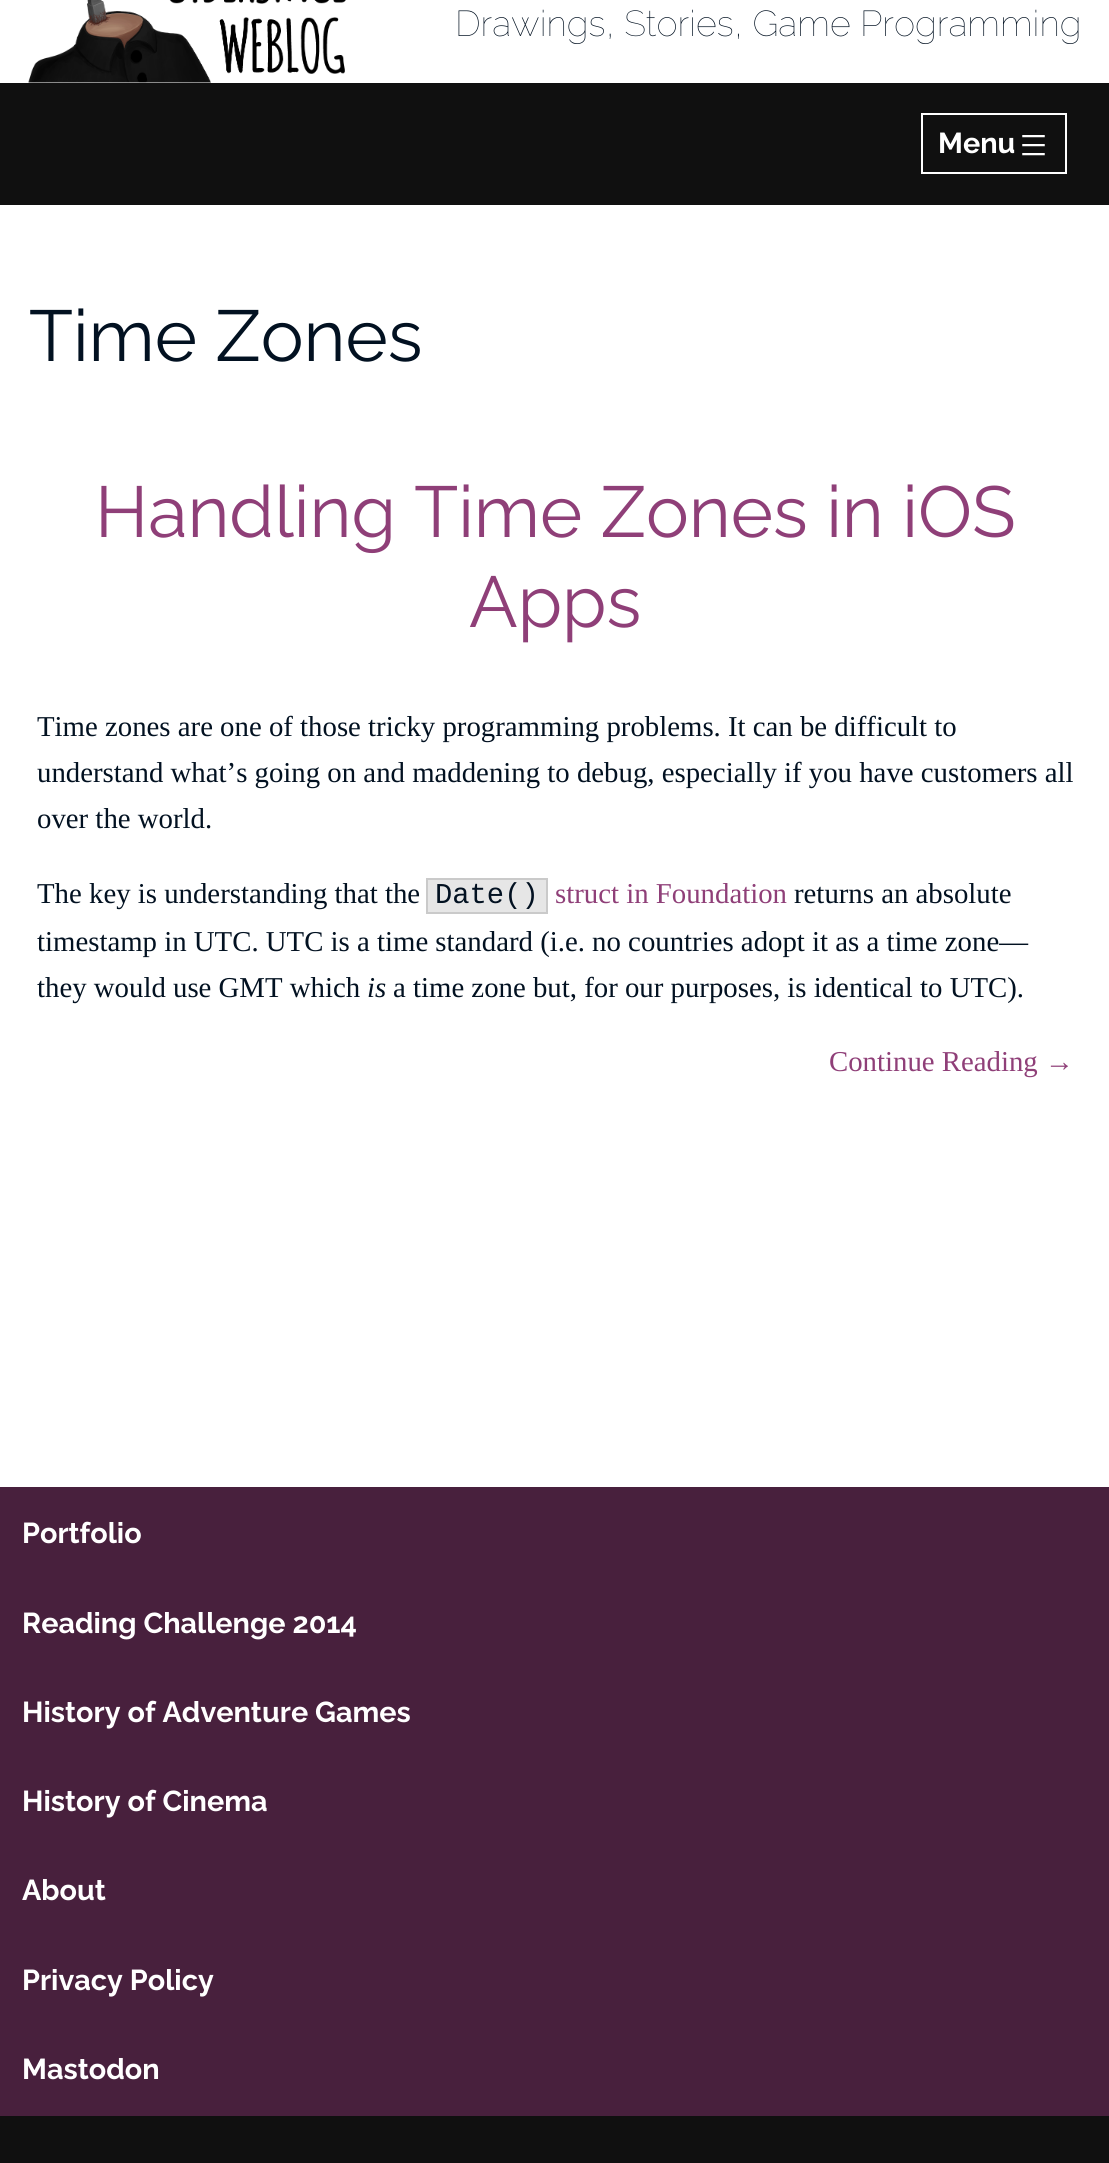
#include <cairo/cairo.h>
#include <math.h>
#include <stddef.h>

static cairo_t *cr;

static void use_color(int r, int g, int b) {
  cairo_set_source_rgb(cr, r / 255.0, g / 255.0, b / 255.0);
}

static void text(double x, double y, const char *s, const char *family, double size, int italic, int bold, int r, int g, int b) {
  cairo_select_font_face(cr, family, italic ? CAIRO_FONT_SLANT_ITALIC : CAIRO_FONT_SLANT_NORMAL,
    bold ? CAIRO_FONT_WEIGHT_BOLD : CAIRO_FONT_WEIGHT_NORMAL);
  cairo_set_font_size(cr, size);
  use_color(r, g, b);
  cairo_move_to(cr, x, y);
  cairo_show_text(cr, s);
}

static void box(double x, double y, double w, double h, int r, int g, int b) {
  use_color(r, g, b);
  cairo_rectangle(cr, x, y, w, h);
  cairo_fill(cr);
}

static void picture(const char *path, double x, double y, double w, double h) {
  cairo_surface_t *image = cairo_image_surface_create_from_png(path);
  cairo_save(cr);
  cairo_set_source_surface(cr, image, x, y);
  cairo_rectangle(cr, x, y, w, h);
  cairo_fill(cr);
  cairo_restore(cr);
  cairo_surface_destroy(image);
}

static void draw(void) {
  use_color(255, 255, 255);
  cairo_paint(cr);
  picture("img_01.png", 28, 0, 318, 83);
  box(0, 83, 1109, 122, 16, 16, 16);
  cairo_rectangle(cr, 922, 114, 144, 59);
  use_color(255, 255, 255);
  cairo_stroke(cr);
  picture("img_02.png", 1022, 135, 23, 21);
  use_color(230, 230, 230);
  cairo_rectangle(cr, 427, 879, 120, 34);
  cairo_fill_preserve(cr);
  use_color(202, 202, 202);
  cairo_stroke(cr);
  box(0, 2116, 1109, 47, 16, 16, 16);
  box(0, 1487, 1109, 629, 72, 32, 61);
  text(455, 36, "Drawings, Stories, Game Programming", "Raleway Thin", 36, 0, 0, 2, 17, 33);
  text(938, 153, "Menu", "Raleway", 28.8, 0, 1, 255, 255, 255);
  text(29, 361, "Time Zones", "Raleway", 72, 0, 0, 2, 17, 33);
  text(95, 537, "Handling Time Zones in iOS", "Raleway", 72, 0, 0, 143, 63, 120);
  text(469, 627, "Apps", "Raleway", 72, 0, 0, 143, 63, 120);
  text(37, 736, "Time zones are one of those tricky programming problems. It can be difficult to", "Liberation Serif", 28.8, 0, 0, 2, 17, 33);
  text(37, 782, "understand what’s going on and maddening to debug, especially if you have customers all", "Liberation Serif", 28.8, 0, 0, 2, 17, 33);
  text(37, 828, "over the world.", "Liberation Serif", 28.8, 0, 0, 2, 17, 33);
  text(37, 903, "The key is understanding that the", "Liberation Serif", 28.8, 0, 0, 2, 17, 33);
  text(435, 903, "Date()", "Liberation Mono", 28.8, 0, 0, 2, 17, 33);
  text(555, 903, "struct in Foundation", "Liberation Serif", 28.8, 0, 0, 143, 63, 120);
  text(794, 903, "returns an absolute", "Liberation Serif", 28.8, 0, 0, 2, 17, 33);
  text(37, 951, "timestamp in UTC. UTC is a time standard (i.e. no countries adopt it as a time zone—", "Liberation Serif", 28.8, 0, 0, 2, 17, 33);
  text(37, 997, "they would use GMT which", "Liberation Serif", 28.8, 0, 0, 2, 17, 33);
  text(367, 997, "is", "Liberation Serif", 28.8, 1, 0, 2, 17, 33);
  text(393, 997, "a time zone but, for our purposes, is identical to UTC).", "Liberation Serif", 28.8, 0, 0, 2, 17, 33);
  text(829, 1071, "Continue Reading →", "Liberation Serif", 28.8, 0, 0, 143, 63, 120);
  text(22, 1543, "Portfolio", "Raleway", 28.8, 0, 1, 255, 255, 255);
  text(22, 1633, "Reading Challenge 2014", "Raleway", 28.8, 0, 1, 255, 255, 255);
  text(22, 1722, "History of Adventure Games", "Raleway", 28.8, 0, 1, 255, 255, 255);
  text(22, 1811, "History of Cinema", "Raleway", 28.8, 0, 1, 255, 255, 255);
  text(22, 1900, "About", "Raleway", 28.8, 0, 1, 255, 255, 255);
  text(22, 1990, "Privacy Policy", "Raleway", 28.8, 0, 1, 255, 255, 255);
  text(22, 2079, "Mastodon", "Raleway", 28.8, 0, 1, 255, 255, 255);
}

int main(void) {
  cairo_surface_t *surface = cairo_image_surface_create(CAIRO_FORMAT_RGB24, 1109, 2163);
  cr = cairo_create(surface);
  cairo_font_options_t *options = cairo_font_options_create();
  cairo_font_options_set_hint_metrics(options, CAIRO_HINT_METRICS_OFF);
  cairo_font_options_set_hint_style(options, CAIRO_HINT_STYLE_NONE);
  cairo_set_font_options(cr, options);
  cairo_set_miter_limit(cr, 4);
  draw();
  cairo_surface_write_to_png(surface, "out.png");
  cairo_font_options_destroy(options);
  cairo_destroy(cr);
  cairo_surface_destroy(surface);
  return 0;
}
